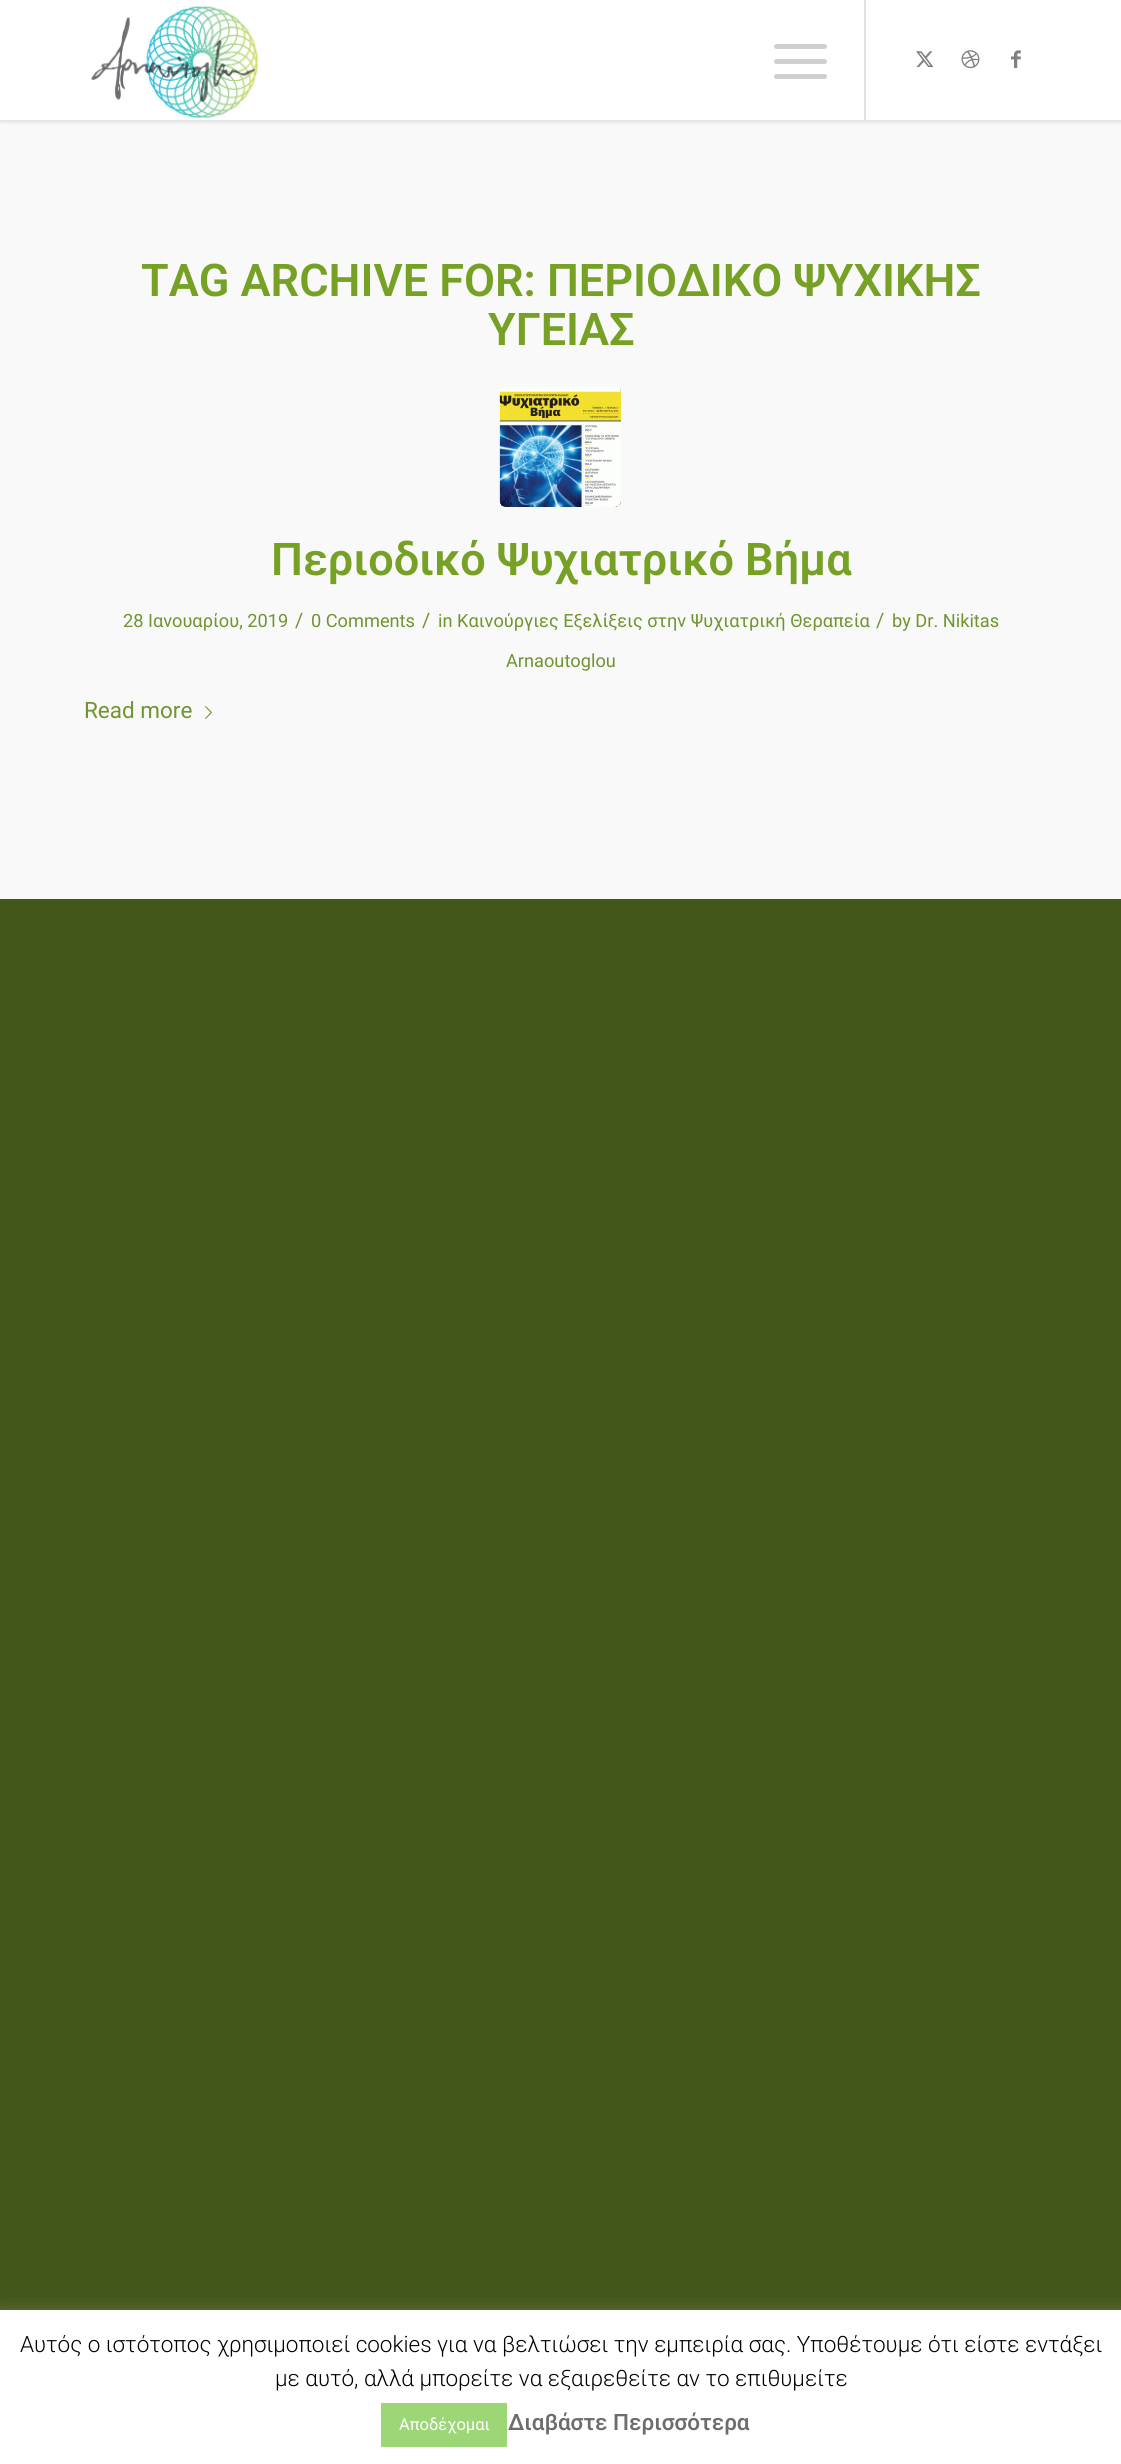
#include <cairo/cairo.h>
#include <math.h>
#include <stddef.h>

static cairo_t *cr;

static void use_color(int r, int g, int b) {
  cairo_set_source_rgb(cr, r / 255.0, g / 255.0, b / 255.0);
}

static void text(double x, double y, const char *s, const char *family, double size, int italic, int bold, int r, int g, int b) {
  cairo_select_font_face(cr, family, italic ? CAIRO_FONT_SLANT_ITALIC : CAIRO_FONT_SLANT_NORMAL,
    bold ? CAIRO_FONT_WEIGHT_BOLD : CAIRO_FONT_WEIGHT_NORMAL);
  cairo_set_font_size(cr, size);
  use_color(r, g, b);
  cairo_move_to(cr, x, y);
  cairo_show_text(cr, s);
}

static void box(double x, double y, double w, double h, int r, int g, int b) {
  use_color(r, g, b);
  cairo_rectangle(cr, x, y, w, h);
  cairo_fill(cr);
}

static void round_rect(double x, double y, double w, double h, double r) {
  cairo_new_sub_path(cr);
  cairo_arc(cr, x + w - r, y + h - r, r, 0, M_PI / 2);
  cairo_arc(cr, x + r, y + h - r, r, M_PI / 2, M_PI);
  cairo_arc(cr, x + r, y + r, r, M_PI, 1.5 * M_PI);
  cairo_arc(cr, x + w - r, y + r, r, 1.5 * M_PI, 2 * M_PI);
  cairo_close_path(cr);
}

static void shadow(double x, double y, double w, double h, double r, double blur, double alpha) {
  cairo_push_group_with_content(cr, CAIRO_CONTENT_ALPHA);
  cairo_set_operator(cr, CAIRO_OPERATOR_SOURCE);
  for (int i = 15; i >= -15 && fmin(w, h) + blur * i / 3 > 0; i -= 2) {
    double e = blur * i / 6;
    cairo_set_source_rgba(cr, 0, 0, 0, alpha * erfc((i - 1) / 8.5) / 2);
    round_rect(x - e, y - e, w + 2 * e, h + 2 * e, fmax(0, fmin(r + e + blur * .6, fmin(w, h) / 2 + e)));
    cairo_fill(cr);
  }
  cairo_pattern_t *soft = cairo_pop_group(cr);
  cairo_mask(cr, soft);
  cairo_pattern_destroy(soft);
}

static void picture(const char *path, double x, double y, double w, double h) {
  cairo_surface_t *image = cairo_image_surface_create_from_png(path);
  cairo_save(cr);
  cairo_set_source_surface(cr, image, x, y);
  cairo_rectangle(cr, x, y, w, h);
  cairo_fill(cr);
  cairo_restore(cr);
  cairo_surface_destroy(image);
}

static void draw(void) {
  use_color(66, 87, 25);
  cairo_paint(cr);
  box(0, 120, 1121, 779, 249, 249, 249);
  use_color(0, 0, 0);
  shadow(-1, -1, 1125, 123, 0, 1.5, 0.1);
  box(0, 0, 1121, 120, 255, 255, 255);
  picture("img_01.png", 90, 5, 169, 114);
  box(864, 0, 2, 120, 225, 225, 225);
  use_color(207, 207, 207);
  round_rect(774, 59, 53, 5, 2.5);
  cairo_fill(cr);
  round_rect(774, 44, 53, 5, 2.5);
  cairo_fill(cr);
  round_rect(774, 74, 53, 5, 2.5);
  cairo_fill(cr);
  picture("img_02.png", 916, 51, 18, 17);
  picture("img_03.png", 961, 50, 19, 19);
  picture("img_04.png", 1011, 50, 10, 18);
  use_color(113, 148, 48);
  round_rect(500, 386, 121, 121, 6);
  cairo_fill(cr);
  picture("img_05.png", 499, 386, 122, 121);
  picture("img_06.png", 205, 706, 7, 13);
  use_color(172, 171, 171);
  shadow(0, 2309, 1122, 154, 0, 7.5, 0.3);
  box(0, 2310, 1121, 154, 255, 255, 255);
  box(381, 2403, 126, 44, 156, 214, 119);
  text(141, 296, "TAG ARCHIVE FOR: ΠΕΡΙΟΔΙΚΟ ΨΥΧΙΚΗΣ", "Roboto SemiBold", 45, 0, 0, 118, 161, 37);
  text(488, 345, "ΥΓΕΙΑΣ", "Roboto SemiBold", 45, 0, 0, 118, 161, 37);
  text(271, 575, "Περιοδικό Ψυχιατρικό Βήμα", "Roboto SemiBold", 45, 0, 0, 118, 161, 37);
  text(123, 627, "28 Ιανουαρίου, 2019", "Roboto", 18.2, 0, 0, 113, 148, 48);
  text(295, 627, "/", "Roboto", 20, 0, 0, 113, 148, 48);
  text(311, 627, "0 Comments", "Roboto", 18.2, 0, 0, 113, 148, 48);
  text(422, 627, "/", "Roboto", 20, 0, 0, 113, 148, 48);
  text(438, 627, "in", "Roboto", 18.2, 0, 0, 113, 148, 48);
  text(457, 627, "Καινούργιες Εξελίξεις στην Ψυχιατρική Θεραπεία", "Roboto", 18.2, 0, 0, 113, 148, 48);
  text(876, 627, "/", "Roboto", 20, 0, 0, 113, 148, 48);
  text(892, 627, "by Dr. Nikitas", "Roboto", 18.2, 0, 0, 113, 148, 48);
  text(506, 667, "Arnaoutoglou", "Roboto", 18.2, 0, 0, 113, 148, 48);
  text(84, 718, "Read more", "Roboto", 22.5, 0, 0, 113, 148, 48);
  text(20, 2352, "Αυτός ο ιστότοπος χρησιμοποιεί cookies για να βελτιώσει την εμπειρία σας. Υποθέτουμε ότι είστε εντάξει", "Roboto Light", 22.5, 0, 0, 0, 0, 0);
  text(275, 2386, "με αυτό, αλλά μπορείτε να εξαιρεθείτε αν το επιθυμείτε", "Roboto Light", 22.5, 0, 0, 0, 0, 0);
  text(399, 2430, "Αποδέχομαι", "Roboto", 16.5, 0, 0, 255, 255, 255);
  text(508, 2430, "Διαβάστε Περισσότερα", "Roboto Medium", 22.5, 0, 0, 109, 109, 109);
}

int main(void) {
  cairo_surface_t *surface = cairo_image_surface_create(CAIRO_FORMAT_RGB24, 1121, 2464);
  cr = cairo_create(surface);
  cairo_font_options_t *options = cairo_font_options_create();
  cairo_font_options_set_hint_metrics(options, CAIRO_HINT_METRICS_OFF);
  cairo_font_options_set_hint_style(options, CAIRO_HINT_STYLE_NONE);
  cairo_set_font_options(cr, options);
  cairo_set_miter_limit(cr, 4);
  draw();
  cairo_surface_write_to_png(surface, "out.png");
  cairo_font_options_destroy(options);
  cairo_destroy(cr);
  cairo_surface_destroy(surface);
  return 0;
}
